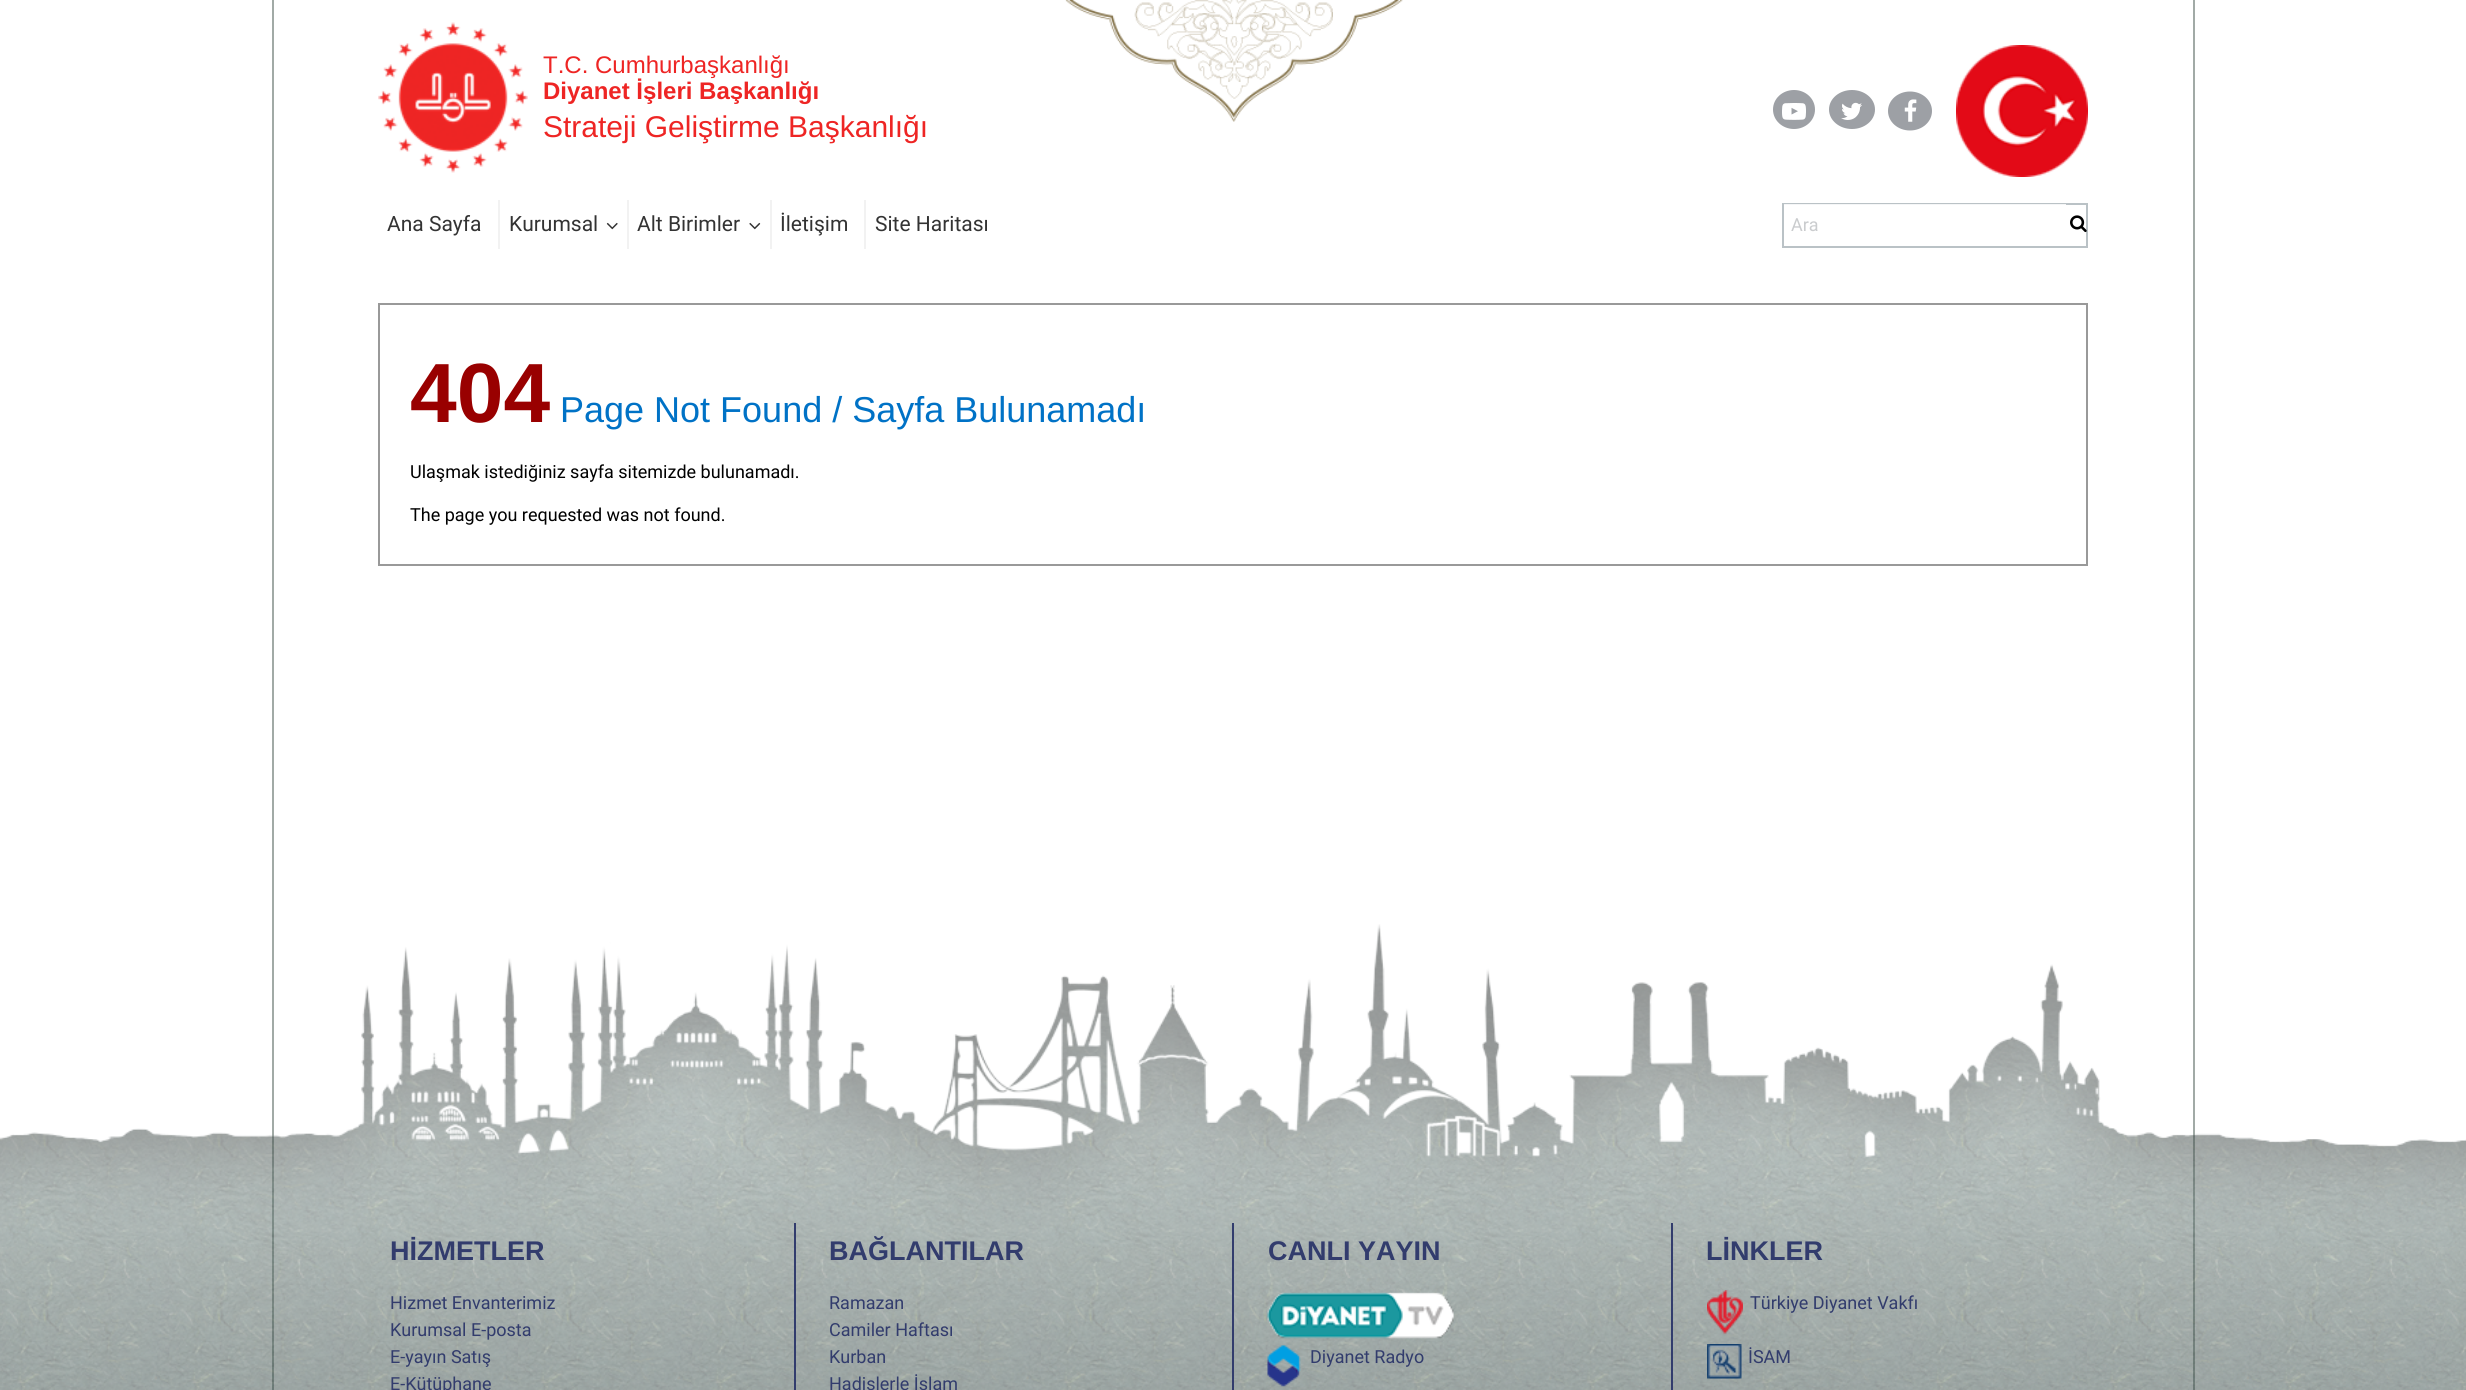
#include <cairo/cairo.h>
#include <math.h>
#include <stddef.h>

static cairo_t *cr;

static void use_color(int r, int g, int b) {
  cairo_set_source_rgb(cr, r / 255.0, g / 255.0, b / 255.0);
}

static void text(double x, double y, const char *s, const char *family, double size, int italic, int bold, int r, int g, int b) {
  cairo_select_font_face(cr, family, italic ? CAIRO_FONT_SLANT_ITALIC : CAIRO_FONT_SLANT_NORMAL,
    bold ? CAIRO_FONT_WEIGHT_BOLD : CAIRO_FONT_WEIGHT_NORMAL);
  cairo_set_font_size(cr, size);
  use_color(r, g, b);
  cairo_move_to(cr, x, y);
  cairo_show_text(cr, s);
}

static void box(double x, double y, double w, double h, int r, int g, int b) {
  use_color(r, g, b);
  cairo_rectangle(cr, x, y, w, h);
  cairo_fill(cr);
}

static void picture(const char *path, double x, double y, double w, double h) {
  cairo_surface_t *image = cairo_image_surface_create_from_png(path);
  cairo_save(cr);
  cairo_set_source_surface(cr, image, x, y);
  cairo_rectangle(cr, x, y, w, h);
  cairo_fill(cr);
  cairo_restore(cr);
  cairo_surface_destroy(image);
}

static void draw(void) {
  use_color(255, 255, 255);
  cairo_paint(cr);
  box(2193, 0, 2, 1390, 161, 170, 166);
  box(272, 0, 2, 1390, 161, 170, 166);
  picture("img_01.png", 1065, 0, 338, 122);
  picture("img_02.png", 378, 22, 150, 151);
  use_color(157, 160, 165);
  cairo_new_path(cr);
  cairo_move_to(cr, 1794, 90);
  cairo_curve_to(cr, 1805.5, 90, 1815, 98.5, 1815, 109.5);
  cairo_curve_to(cr, 1815, 120.5, 1805.5, 129, 1794, 129);
  cairo_curve_to(cr, 1782.5, 129, 1773, 120.5, 1773, 109.5);
  cairo_curve_to(cr, 1773, 98.5, 1782.5, 90, 1794, 90);
  cairo_close_path(cr);
  cairo_fill(cr);
  picture("img_03.png", 1782, 103, 24, 17);
  cairo_new_path(cr);
  cairo_move_to(cr, 1852, 90);
  cairo_curve_to(cr, 1864.5, 90, 1875, 98.5, 1875, 109.5);
  cairo_curve_to(cr, 1875, 120.5, 1864.5, 129, 1852, 129);
  cairo_curve_to(cr, 1839.5, 129, 1829, 120.5, 1829, 109.5);
  cairo_curve_to(cr, 1829, 98.5, 1839.5, 90, 1852, 90);
  cairo_close_path(cr);
  cairo_fill(cr);
  picture("img_04.png", 1841, 102, 21, 18);
  cairo_new_path(cr);
  cairo_move_to(cr, 1910, 91.5);
  cairo_curve_to(cr, 1922, 91.5, 1932, 100, 1932, 111);
  cairo_curve_to(cr, 1932, 122, 1922, 130.5, 1910, 130.5);
  cairo_curve_to(cr, 1898, 130.5, 1888, 122, 1888, 111);
  cairo_curve_to(cr, 1888, 100, 1898, 91.5, 1910, 91.5);
  cairo_close_path(cr);
  cairo_fill(cr);
  picture("img_05.png", 1904, 99, 13, 23);
  picture("img_06.png", 1956, 45, 132, 132);
  box(498, 200, 2, 49, 242, 242, 242);
  box(627, 200, 2, 49, 242, 242, 242);
  picture("img_07.png", 606, 222, 12, 8);
  box(770, 200, 2, 49, 242, 242, 242);
  picture("img_08.png", 749, 222, 12, 8);
  box(864, 200, 2, 49, 242, 242, 242);
  cairo_rectangle(cr, 1783, 204, 304, 43);
  use_color(186, 194, 198);
  cairo_stroke(cr);
  cairo_set_source_rgba(cr, 1, 1, 1, 0.85);
  cairo_rectangle(cr, 1784, 204, 282, 1);
  cairo_fill(cr);
  picture("img_09.png", 2070, 215, 17, 18);
  cairo_rectangle(cr, 379, 304, 1708, 261);
  use_color(153, 153, 153);
  cairo_stroke(cr);
  picture("img_10.png", 0, 924, 2466, 466);
  box(794, 1223, 2, 167, 50, 60, 109);
  box(1232, 1223, 2, 167, 50, 60, 109);
  box(1671, 1223, 2, 167, 50, 60, 109);
  picture("img_11.png", 1267, 1292, 187, 47);
  picture("img_12.png", 1267, 1345, 34, 42);
  picture("img_13.png", 1707, 1290, 36, 44);
  picture("img_14.png", 1707, 1344, 35, 35);
  text(543, 73, "T.C. Cumhurbaşkanlığı", "Liberation Sans", 24, 0, 0, 238, 37, 36);
  text(543, 99, "Diyanet İşleri Başkanlığı", "Liberation Sans", 24, 0, 1, 238, 37, 36);
  text(543, 137, "Strateji Geliştirme Başkanlığı", "Liberation Sans", 30, 0, 0, 238, 37, 36);
  text(387, 231, "Ana Sayfa", "Roboto", 21, 0, 0, 51, 51, 51);
  text(509, 231, "Kurumsal", "Roboto", 21, 0, 0, 51, 51, 51);
  text(637, 231, "Alt Birimler", "Roboto", 21, 0, 0, 51, 51, 51);
  text(780, 231, "İletişim", "Roboto", 21, 0, 0, 51, 51, 51);
  text(875, 231, "Site Haritası", "Roboto", 21, 0, 0, 51, 51, 51);
  text(1791, 231, "Ara", "Roboto", 18, 0, 0, 202, 204, 206);
  text(410, 422, "404", "Liberation Sans", 84, 0, 1, 153, 0, 0);
  text(560, 422, "Page Not Found / Sayfa Bulunamadı", "Liberation Sans", 36, 0, 0, 0, 114, 198);
  text(410, 478, "Ulaşmak istediğiniz sayfa sitemizde bulunamadı.", "Roboto", 18, 0, 0, 0, 0, 0);
  text(410, 521, "The page you requested was not found.", "Roboto", 18, 0, 0, 0, 0, 0);
  text(390, 1260, "HİZMETLER", "Liberation Sans", 27, 0, 1, 50, 60, 109);
  text(390, 1309, "Hizmet Envanterimiz", "Roboto", 18, 0, 0, 50, 60, 109);
  text(390, 1336, "Kurumsal E-posta", "Roboto", 18, 0, 0, 50, 60, 109);
  text(390, 1363, "E-yayın Satış", "Roboto", 18, 0, 0, 50, 60, 109);
  text(390, 1390, "E-Kütüphane", "Roboto", 18, 0, 0, 50, 60, 109);
  text(829, 1260, "BAĞLANTILAR", "Liberation Sans", 27, 0, 1, 50, 60, 109);
  text(829, 1309, "Ramazan", "Roboto", 18, 0, 0, 50, 60, 109);
  text(829, 1336, "Camiler Haftası", "Roboto", 18, 0, 0, 50, 60, 109);
  text(829, 1363, "Kurban", "Roboto", 18, 0, 0, 50, 60, 109);
  text(829, 1390, "Hadislerle İslam", "Roboto", 18, 0, 0, 50, 60, 109);
  text(1268, 1260, "CANLI YAYIN", "Liberation Sans", 27, 0, 1, 50, 60, 109);
  text(1310, 1363, "Diyanet Radyo", "Roboto", 18, 0, 0, 50, 60, 109);
  text(1706, 1260, "LİNKLER", "Liberation Sans", 27, 0, 1, 50, 60, 109);
  text(1750, 1309, "Türkiye Diyanet Vakfı", "Roboto", 18, 0, 0, 50, 60, 109);
  text(1748, 1363, "İSAM", "Roboto", 18, 0, 0, 50, 60, 109);
}

int main(void) {
  cairo_surface_t *surface = cairo_image_surface_create(CAIRO_FORMAT_RGB24, 2466, 1390);
  cr = cairo_create(surface);
  cairo_font_options_t *options = cairo_font_options_create();
  cairo_font_options_set_hint_metrics(options, CAIRO_HINT_METRICS_OFF);
  cairo_font_options_set_hint_style(options, CAIRO_HINT_STYLE_NONE);
  cairo_set_font_options(cr, options);
  cairo_set_miter_limit(cr, 4);
  draw();
  cairo_surface_write_to_png(surface, "out.png");
  cairo_font_options_destroy(options);
  cairo_destroy(cr);
  cairo_surface_destroy(surface);
  return 0;
}
